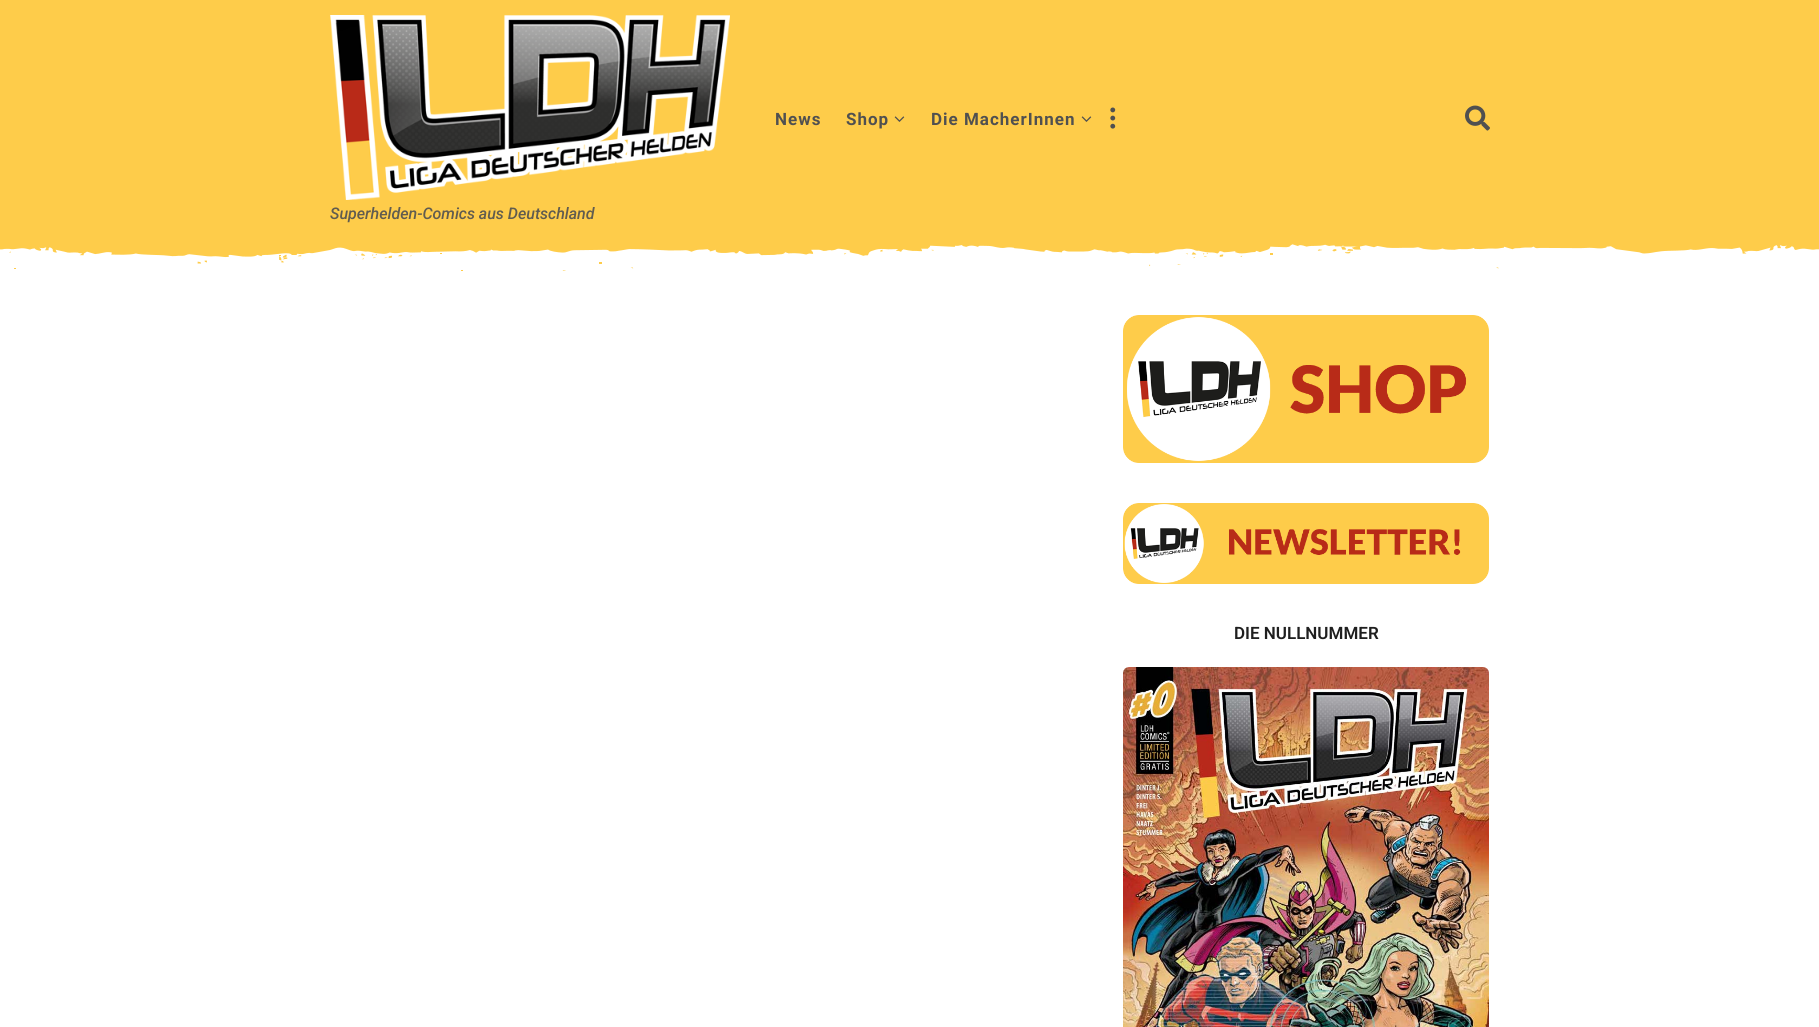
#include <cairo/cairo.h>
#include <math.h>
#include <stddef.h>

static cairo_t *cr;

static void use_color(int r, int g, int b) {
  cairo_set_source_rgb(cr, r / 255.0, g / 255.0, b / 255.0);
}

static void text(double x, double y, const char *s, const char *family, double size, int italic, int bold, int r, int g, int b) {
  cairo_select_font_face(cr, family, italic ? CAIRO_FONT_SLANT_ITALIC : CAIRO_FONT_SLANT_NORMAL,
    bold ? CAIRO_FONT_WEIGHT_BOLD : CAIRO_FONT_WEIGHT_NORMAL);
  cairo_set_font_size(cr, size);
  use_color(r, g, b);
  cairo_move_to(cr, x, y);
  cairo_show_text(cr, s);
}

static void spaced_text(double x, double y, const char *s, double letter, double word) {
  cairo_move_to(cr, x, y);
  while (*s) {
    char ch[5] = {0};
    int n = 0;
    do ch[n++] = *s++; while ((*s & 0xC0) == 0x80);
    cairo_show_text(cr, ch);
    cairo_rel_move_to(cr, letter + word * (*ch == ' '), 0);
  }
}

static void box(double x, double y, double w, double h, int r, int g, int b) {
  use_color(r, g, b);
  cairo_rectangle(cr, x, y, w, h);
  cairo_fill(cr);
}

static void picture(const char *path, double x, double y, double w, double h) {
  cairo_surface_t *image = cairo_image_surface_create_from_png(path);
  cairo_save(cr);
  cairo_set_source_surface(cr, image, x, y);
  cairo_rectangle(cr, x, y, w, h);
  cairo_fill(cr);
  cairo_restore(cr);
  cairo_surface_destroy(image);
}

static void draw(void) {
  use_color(255, 255, 255);
  cairo_paint(cr);
  box(0, 0, 1819, 237, 254, 204, 74);
  picture("img_01.png", 894, 116, 11, 6);
  picture("img_01.png", 1081, 116, 11, 6);
  picture("img_02.png", 1110, 107, 6, 22);
  picture("img_03.png", 1465, 105, 25, 26);
  picture("img_04.png", 330, 15, 400, 185);
  picture("img_05.png", 0, 237, 1819, 34);
  picture("img_06.png", 1123, 315, 366, 148);
  picture("img_07.png", 1123, 503, 366, 81);
  picture("img_08.png", 1123, 667, 366, 360);
  cairo_select_font_face(cr, "Roboto", CAIRO_FONT_SLANT_NORMAL, CAIRO_FONT_WEIGHT_BOLD);
  cairo_set_font_size(cr, 17);
  use_color(80, 80, 80);
  spaced_text(775, 125, "News", 1, 0);
  spaced_text(846, 125, "Shop", 1, 0);
  spaced_text(931, 125, "Die MacherInnen", 1, 0);
  text(330, 219, "Superhelden-Comics aus Deutschland", "Roboto Medium", 16, 1, 0, 97, 92, 79);
  text(1234, 639, "DIE NULLNUMMER", "Roboto SemiBold", 17, 0, 0, 31, 31, 31);
}

int main(void) {
  cairo_surface_t *surface = cairo_image_surface_create(CAIRO_FORMAT_RGB24, 1819, 1027);
  cr = cairo_create(surface);
  cairo_font_options_t *options = cairo_font_options_create();
  cairo_font_options_set_hint_metrics(options, CAIRO_HINT_METRICS_OFF);
  cairo_font_options_set_hint_style(options, CAIRO_HINT_STYLE_NONE);
  cairo_set_font_options(cr, options);
  cairo_set_miter_limit(cr, 4);
  draw();
  cairo_surface_write_to_png(surface, "out.png");
  cairo_font_options_destroy(options);
  cairo_destroy(cr);
  cairo_surface_destroy(surface);
  return 0;
}
